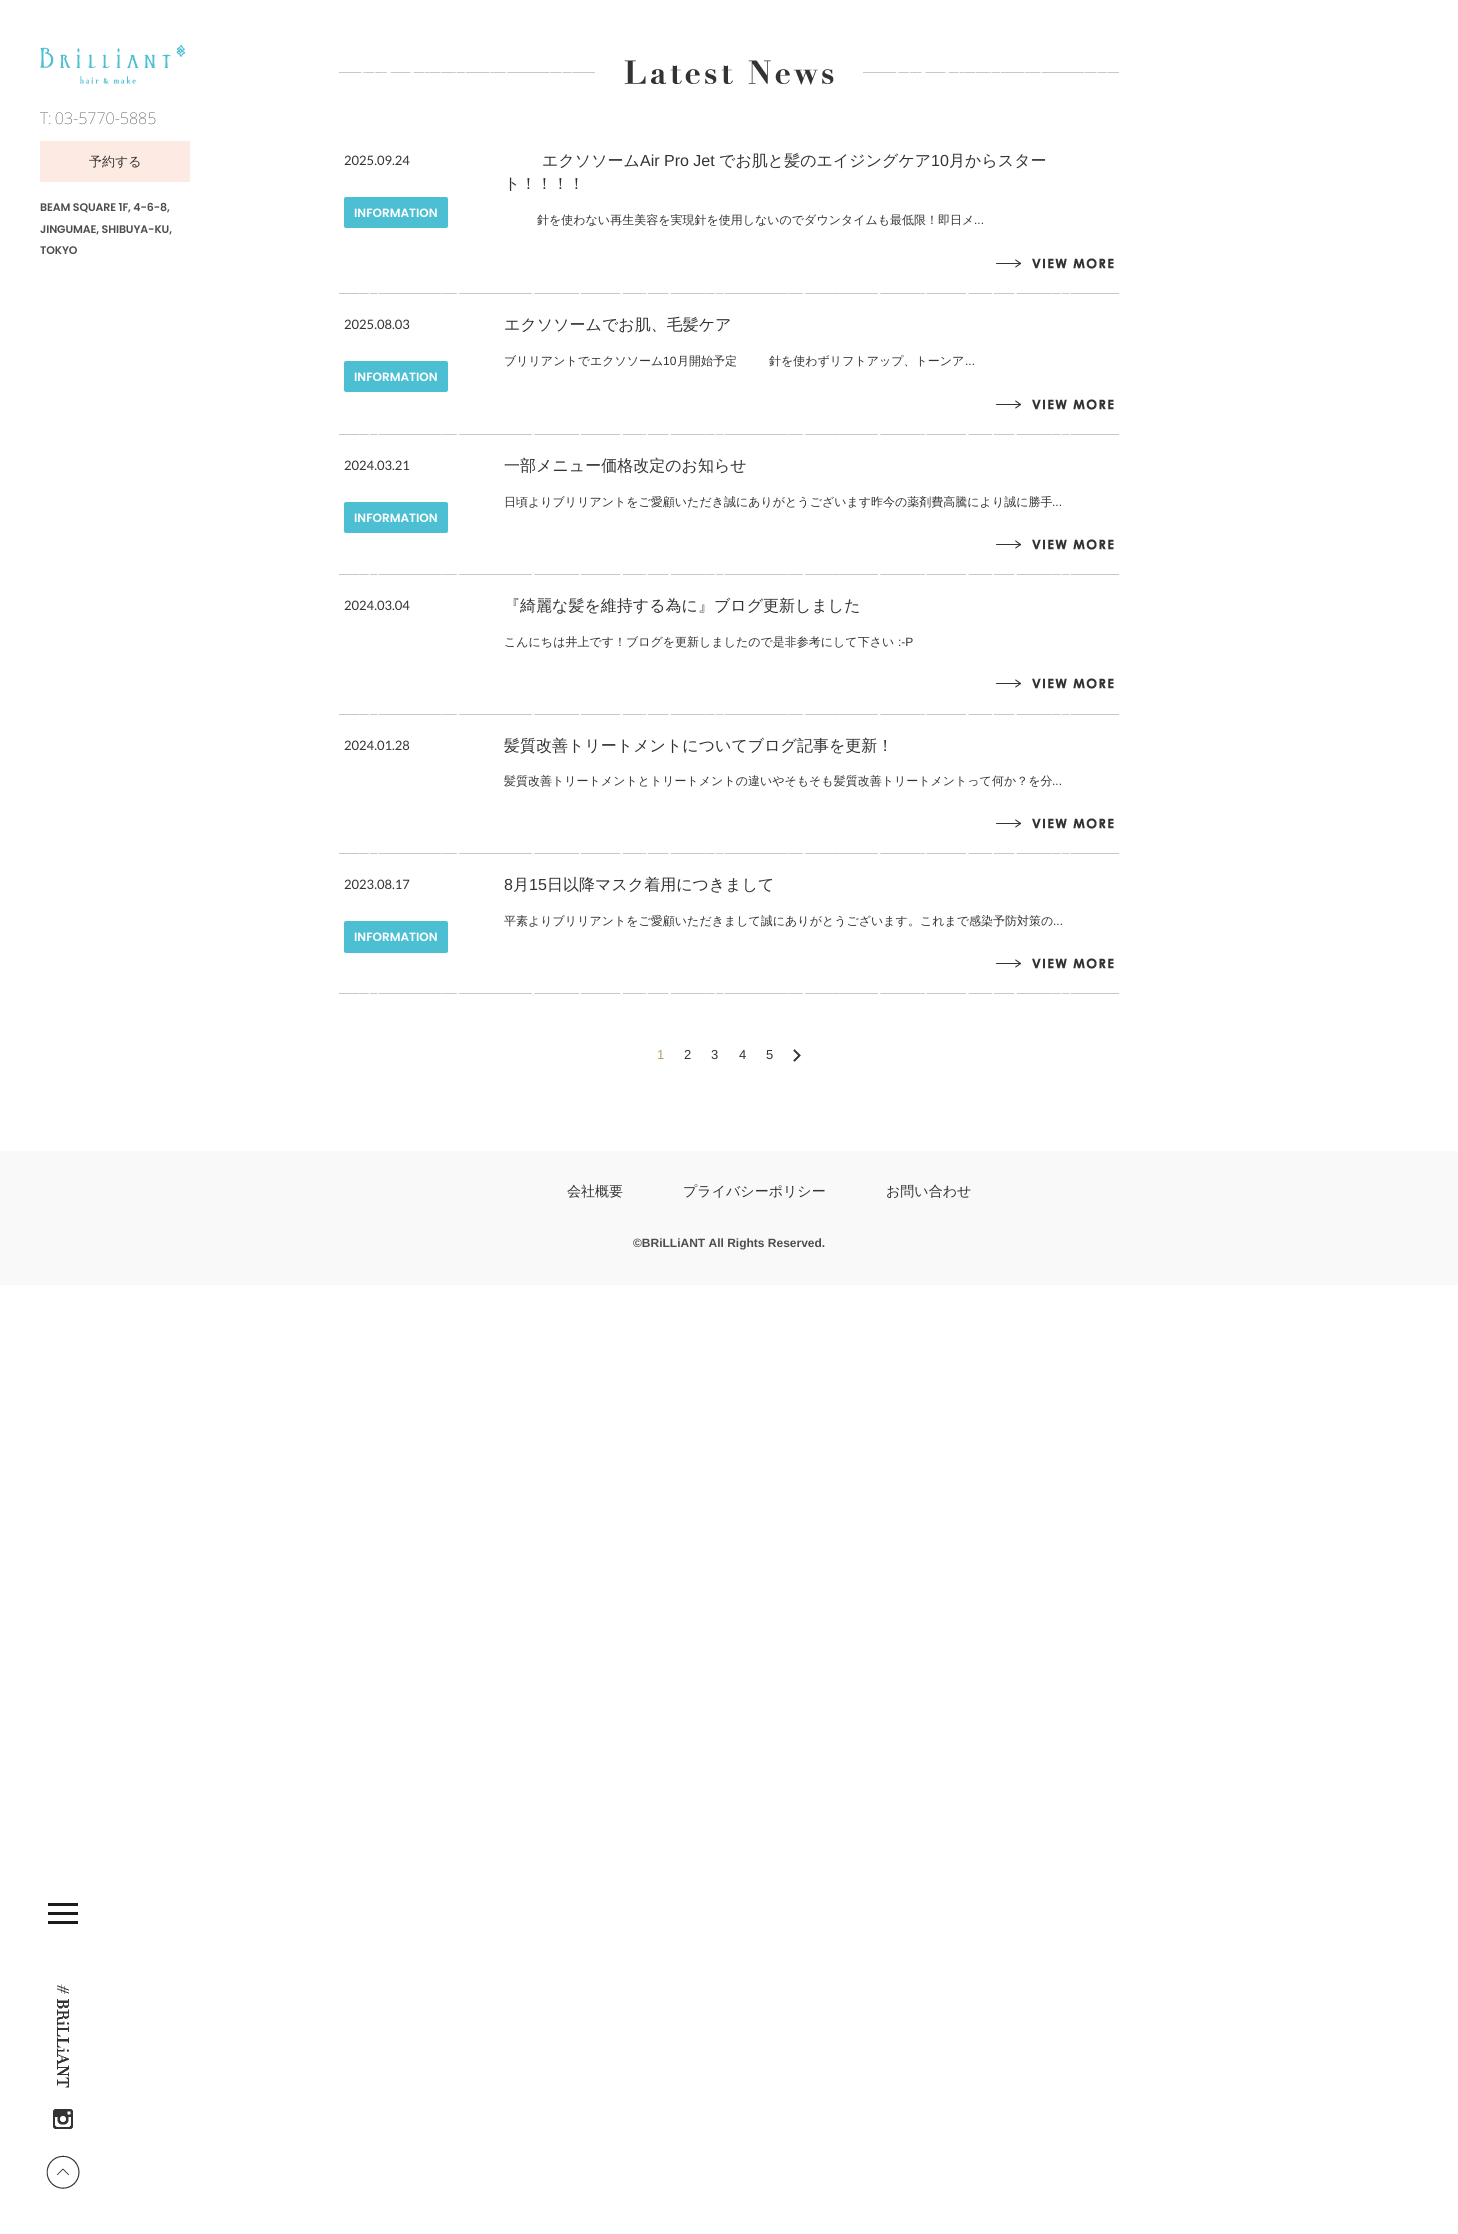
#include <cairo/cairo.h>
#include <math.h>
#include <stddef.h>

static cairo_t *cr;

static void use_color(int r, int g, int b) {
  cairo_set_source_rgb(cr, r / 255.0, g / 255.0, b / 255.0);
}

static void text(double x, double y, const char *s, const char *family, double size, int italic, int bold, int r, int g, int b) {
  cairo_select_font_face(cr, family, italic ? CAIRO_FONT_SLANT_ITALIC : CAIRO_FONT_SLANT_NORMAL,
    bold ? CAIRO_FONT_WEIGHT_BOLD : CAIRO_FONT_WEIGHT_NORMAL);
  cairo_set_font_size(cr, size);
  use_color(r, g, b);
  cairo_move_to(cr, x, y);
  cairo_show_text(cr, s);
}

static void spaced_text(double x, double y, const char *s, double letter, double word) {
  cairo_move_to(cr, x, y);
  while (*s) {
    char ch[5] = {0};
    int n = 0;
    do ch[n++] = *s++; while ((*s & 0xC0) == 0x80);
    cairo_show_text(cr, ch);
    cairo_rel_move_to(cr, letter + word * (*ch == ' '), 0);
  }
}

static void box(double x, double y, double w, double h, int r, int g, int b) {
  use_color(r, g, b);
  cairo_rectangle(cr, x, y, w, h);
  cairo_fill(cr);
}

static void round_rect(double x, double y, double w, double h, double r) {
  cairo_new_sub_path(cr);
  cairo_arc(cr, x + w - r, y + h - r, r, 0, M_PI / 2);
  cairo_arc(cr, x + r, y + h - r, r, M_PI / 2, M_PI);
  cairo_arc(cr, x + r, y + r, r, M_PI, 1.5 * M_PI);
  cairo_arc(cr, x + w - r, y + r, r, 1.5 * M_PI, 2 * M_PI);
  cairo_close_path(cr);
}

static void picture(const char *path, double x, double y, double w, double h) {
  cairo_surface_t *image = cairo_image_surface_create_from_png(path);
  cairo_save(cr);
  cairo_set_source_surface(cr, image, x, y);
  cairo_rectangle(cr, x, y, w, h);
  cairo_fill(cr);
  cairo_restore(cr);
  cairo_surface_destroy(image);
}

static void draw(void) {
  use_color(255, 255, 255);
  cairo_paint(cr);
  picture("img_01.png", 40, 45, 145, 39);
  box(40, 141, 150, 41, 253, 234, 227);
  picture("img_02.png", 48, 1903, 30, 21);
  picture("img_03.png", 57, 1984, 12, 104);
  picture("img_04.png", 53, 2109, 20, 20);
  picture("img_05.png", 46, 2155, 34, 34);
  picture("img_06.png", 339, 60, 780, 25);
  picture("img_07.png", 339, 293, 780, 1);
  use_color(77, 191, 210);
  round_rect(344, 197, 104, 31, 2);
  cairo_fill(cr);
  picture("img_08.png", 996, 258, 118, 11);
  picture("img_07.png", 339, 434, 780, 1);
  round_rect(344, 361, 104, 31, 2);
  cairo_fill(cr);
  picture("img_08.png", 996, 399, 118, 11);
  picture("img_07.png", 339, 574, 780, 1);
  round_rect(344, 502, 104, 31, 2);
  cairo_fill(cr);
  picture("img_08.png", 996, 539, 118, 11);
  picture("img_07.png", 339, 714, 780, 1);
  picture("img_08.png", 996, 678, 118, 11);
  picture("img_07.png", 339, 853, 780, 1);
  picture("img_08.png", 996, 818, 118, 11);
  picture("img_07.png", 339, 993, 780, 1);
  round_rect(344, 921, 104, 32, 2);
  cairo_fill(cr);
  picture("img_08.png", 996, 958, 118, 11);
  picture("img_09.png", 793, 1049, 8, 13);
  box(0, 1151, 1458, 134, 249, 249, 249);
  cairo_select_font_face(cr, "Noto Sans Thin", CAIRO_FONT_SLANT_NORMAL, CAIRO_FONT_WEIGHT_NORMAL);
  cairo_set_font_size(cr, 16);
  use_color(51, 51, 51);
  spaced_text(40, 124, "T: 03-5770-5885", 0, -1);
  text(89, 166, "予約する", "WenQuanYi Zen Hei Medium", 13, 0, 0, 51, 51, 51);
  cairo_select_font_face(cr, "Poppins SemiBold", CAIRO_FONT_SLANT_NORMAL, CAIRO_FONT_WEIGHT_NORMAL);
  cairo_set_font_size(cr, 11);
  use_color(77, 77, 77);
  spaced_text(40, 211, "BEAM SQUARE 1F, 4-6-8,", -0.1, 0);
  spaced_text(40, 233, "JINGUMAE, SHIBUYA-KU,", -0.1, 0);
  spaced_text(40, 254, "TOKYO", -0.1, 0);
  text(344, 165, "2025.09.24", "Lato", 13, 0, 0, 51, 51, 51);
  text(354, 217, "INFORMATION", "Poppins SemiBold", 12, 0, 0, 255, 255, 255);
  text(542, 166, "エクソソーム", "WenQuanYi Zen Hei Medium", 16, 0, 0, 51, 51, 51);
  text(640, 166, "Air Pro Jet", "Liberation Sans", 16, 0, 0, 51, 51, 51);
  text(719, 166, "でお肌と髪のエイジングケア", "WenQuanYi Zen Hei Medium", 16, 0, 0, 51, 51, 51);
  text(931, 166, "10", "Liberation Sans", 16, 0, 0, 51, 51, 51);
  text(949, 166, "月からスター", "WenQuanYi Zen Hei Medium", 16, 0, 0, 51, 51, 51);
  text(504, 189, "ト！！！！", "WenQuanYi Zen Hei Medium", 16, 0, 0, 51, 51, 51);
  text(537, 224, "針を使わない再生美容を実現針を使用しないのでダウンタイムも最低限！即日メ", "WenQuanYi Zen Hei Medium", 12, 0, 0, 51, 51, 51);
  text(974, 224, "...", "Liberation Sans", 12, 0, 0, 51, 51, 51);
  text(344, 329, "2025.08.03", "Lato", 13, 0, 0, 51, 51, 51);
  text(354, 381, "INFORMATION", "Poppins SemiBold", 12, 0, 0, 255, 255, 255);
  text(504, 330, "エクソソームでお肌、毛髪ケア", "WenQuanYi Zen Hei Medium", 16, 0, 0, 51, 51, 51);
  text(504, 365, "ブリリアントでエクソソーム", "WenQuanYi Zen Hei Medium", 12, 0, 0, 51, 51, 51);
  text(663, 365, "10", "Liberation Sans", 12, 0, 0, 51, 51, 51);
  text(677, 365, "月開始予定", "WenQuanYi Zen Hei Medium", 12, 0, 0, 51, 51, 51);
  text(769, 365, "針を使わずリフトアップ、トーンア", "WenQuanYi Zen Hei Medium", 12, 0, 0, 51, 51, 51);
  text(965, 365, "...", "Liberation Sans", 12, 0, 0, 51, 51, 51);
  text(344, 470, "2024.03.21", "Lato", 13, 0, 0, 51, 51, 51);
  text(354, 522, "INFORMATION", "Poppins SemiBold", 12, 0, 0, 255, 255, 255);
  text(504, 471, "一部メニュー価格改定のお知らせ", "WenQuanYi Zen Hei Medium", 16, 0, 0, 51, 51, 51);
  text(504, 506, "日頃よりブリリアントをご愛顧いただき誠にありがとうございます昨今の薬剤費高騰により誠に勝手", "WenQuanYi Zen Hei Medium", 12, 0, 0, 51, 51, 51);
  text(1052, 506, "...", "Liberation Sans", 12, 0, 0, 51, 51, 51);
  text(344, 610, "2024.03.04", "Lato", 13, 0, 0, 51, 51, 51);
  text(504, 611, "『綺麗な髪を維持する為に』ブログ更新しました", "WenQuanYi Zen Hei Medium", 16, 0, 0, 51, 51, 51);
  text(504, 646, "こんにちは井上です！ブログを更新しましたので是非参考にして下さい", "WenQuanYi Zen Hei Medium", 12, 0, 0, 51, 51, 51);
  text(898, 646, ":-P", "Liberation Sans", 12, 0, 0, 51, 51, 51);
  text(344, 750, "2024.01.28", "Lato", 13, 0, 0, 51, 51, 51);
  text(504, 751, "髪質改善トリートメントについてブログ記事を更新！", "WenQuanYi Zen Hei Medium", 16, 0, 0, 51, 51, 51);
  text(504, 785, "髪質改善トリートメントとトリートメントの違いやそもそも髪質改善トリートメントって何か？を分", "WenQuanYi Zen Hei Medium", 12, 0, 0, 51, 51, 51);
  text(1052, 785, "...", "Liberation Sans", 12, 0, 0, 51, 51, 51);
  text(344, 889, "2023.08.17", "Lato", 13, 0, 0, 51, 51, 51);
  text(354, 941, "INFORMATION", "Poppins SemiBold", 12, 0, 0, 255, 255, 255);
  text(504, 890, "8", "Liberation Sans", 16, 0, 0, 51, 51, 51);
  text(513, 890, "月", "WenQuanYi Zen Hei Medium", 16, 0, 0, 51, 51, 51);
  text(529, 890, "15", "Liberation Sans", 16, 0, 0, 51, 51, 51);
  text(547, 890, "日以降マスク着用につきまして", "WenQuanYi Zen Hei Medium", 16, 0, 0, 51, 51, 51);
  text(504, 925, "平素よりブリリアントをご愛顧いただきまして誠にありがとうございます。これまで感染予防対策の", "WenQuanYi Zen Hei Medium", 12, 0, 0, 51, 51, 51);
  text(1053, 925, "...", "Liberation Sans", 12, 0, 0, 51, 51, 51);
  text(657, 1059, "1", "Liberation Sans", 13, 0, 0, 180, 157, 104);
  text(684, 1059, "2", "Liberation Sans", 13, 0, 0, 51, 51, 51);
  text(711, 1059, "3", "Liberation Sans", 13, 0, 0, 51, 51, 51);
  text(739, 1059, "4", "Liberation Sans", 13, 0, 0, 51, 51, 51);
  text(766, 1059, "5", "Liberation Sans", 13, 0, 0, 51, 51, 51);
  text(567, 1196, "会社概要", "WenQuanYi Zen Hei Medium", 14, 0, 0, 51, 51, 51);
  text(683, 1196, "プライバシーポリシー", "WenQuanYi Zen Hei Medium", 14, 0, 0, 51, 51, 51);
  text(886, 1196, "お問い合わせ", "WenQuanYi Zen Hei Medium", 14, 0, 0, 51, 51, 51);
  text(633, 1247, "©BRiLLiANT All Rights Reserved.", "Liberation Sans", 12, 0, 1, 77, 77, 77);
}

int main(void) {
  cairo_surface_t *surface = cairo_image_surface_create(CAIRO_FORMAT_RGB24, 1458, 2234);
  cr = cairo_create(surface);
  cairo_font_options_t *options = cairo_font_options_create();
  cairo_font_options_set_hint_metrics(options, CAIRO_HINT_METRICS_OFF);
  cairo_font_options_set_hint_style(options, CAIRO_HINT_STYLE_NONE);
  cairo_set_font_options(cr, options);
  cairo_set_miter_limit(cr, 4);
  draw();
  cairo_surface_write_to_png(surface, "out.png");
  cairo_font_options_destroy(options);
  cairo_destroy(cr);
  cairo_surface_destroy(surface);
  return 0;
}
